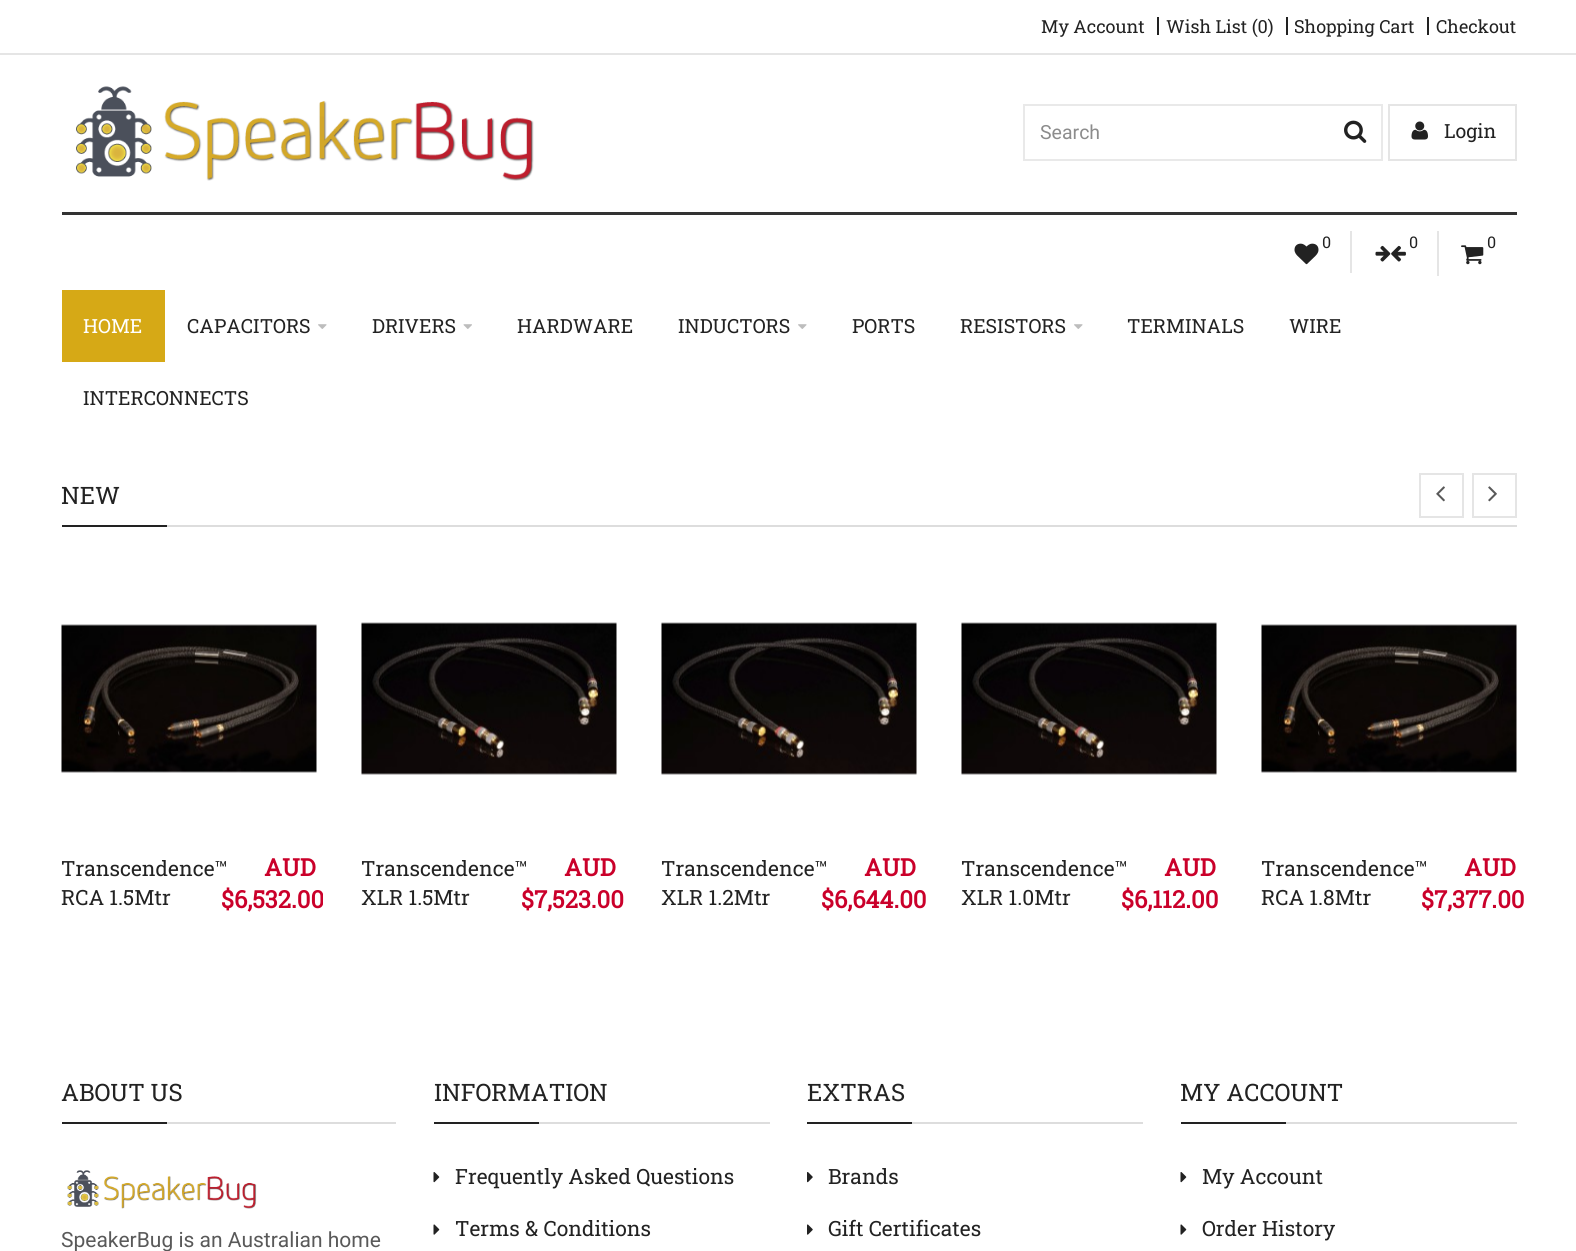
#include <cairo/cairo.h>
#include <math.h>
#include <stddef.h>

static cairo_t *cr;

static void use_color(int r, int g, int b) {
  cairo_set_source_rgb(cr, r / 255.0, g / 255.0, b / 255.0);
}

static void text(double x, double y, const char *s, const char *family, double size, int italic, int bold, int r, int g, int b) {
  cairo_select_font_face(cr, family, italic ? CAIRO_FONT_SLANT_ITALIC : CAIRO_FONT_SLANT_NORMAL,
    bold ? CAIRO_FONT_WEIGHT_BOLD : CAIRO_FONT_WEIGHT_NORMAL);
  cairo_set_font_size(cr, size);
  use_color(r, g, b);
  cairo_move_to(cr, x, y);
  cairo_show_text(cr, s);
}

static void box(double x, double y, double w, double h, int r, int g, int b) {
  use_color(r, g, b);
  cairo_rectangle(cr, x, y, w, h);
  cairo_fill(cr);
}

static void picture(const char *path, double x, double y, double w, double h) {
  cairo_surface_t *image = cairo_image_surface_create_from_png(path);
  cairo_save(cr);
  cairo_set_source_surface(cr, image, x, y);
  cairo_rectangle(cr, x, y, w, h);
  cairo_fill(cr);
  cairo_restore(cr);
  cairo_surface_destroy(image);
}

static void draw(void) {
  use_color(255, 255, 255);
  cairo_paint(cr);
  box(0, 53, 1576, 2, 229, 229, 229);
  box(1157, 17, 2, 18, 34, 34, 34);
  box(1286, 17, 2, 18, 34, 34, 34);
  box(1427, 17, 2, 18, 34, 34, 34);
  picture("img_01.png", 76, 86, 458, 95);
  cairo_rectangle(cr, 1024, 105, 358, 55);
  use_color(233, 233, 233);
  cairo_stroke(cr);
  picture("img_02.png", 1344, 120, 23, 23);
  cairo_rectangle(cr, 1389, 105, 127, 55);
  use_color(229, 229, 229);
  cairo_stroke(cr);
  picture("img_03.png", 1411, 121, 17, 19);
  box(62, 212, 1455, 3, 51, 51, 51);
  picture("img_04.png", 1294, 243, 25, 22);
  box(1350, 231, 2, 42, 229, 229, 229);
  picture("img_05.png", 1375, 245, 16, 17);
  picture("img_06.png", 1391, 245, 15, 17);
  box(1437, 231, 2, 45, 229, 229, 229);
  picture("img_07.png", 1461, 245, 23, 20);
  box(62, 290, 103, 72, 214, 169, 22);
  picture("img_08.png", 318, 324, 9, 5);
  picture("img_09.png", 463, 324, 9, 5);
  picture("img_08.png", 798, 324, 9, 5);
  picture("img_08.png", 1074, 324, 9, 5);
  box(167, 525, 1350, 2, 221, 221, 221);
  box(62, 525, 105, 2, 34, 34, 34);
  cairo_rectangle(cr, 1420, 474, 43, 43);
  use_color(229, 229, 229);
  cairo_stroke(cr);
  picture("img_10.png", 1436, 486, 9, 16);
  cairo_rectangle(cr, 1473, 474, 43, 43);
  cairo_stroke(cr);
  picture("img_11.png", 1488, 486, 9, 16);
  picture("img_12.png", 61, 624, 256, 149);
  picture("img_13.png", 361, 622, 256, 153);
  picture("img_13.png", 661, 622, 256, 153);
  picture("img_13.png", 961, 622, 256, 153);
  picture("img_12.png", 1261, 624, 256, 149);
  box(167, 1122, 229, 2, 221, 221, 221);
  box(62, 1122, 105, 2, 34, 34, 34);
  picture("img_14.png", 67, 1170, 190, 39);
  box(539, 1122, 231, 2, 221, 221, 221);
  box(434, 1122, 105, 2, 34, 34, 34);
  picture("img_15.png", 433, 1172, 7, 11);
  picture("img_16.png", 433, 1224, 7, 11);
  box(912, 1122, 231, 2, 221, 221, 221);
  box(807, 1122, 105, 2, 34, 34, 34);
  picture("img_17.png", 807, 1172, 6, 11);
  picture("img_18.png", 807, 1224, 6, 11);
  box(1286, 1122, 231, 2, 221, 221, 221);
  box(1181, 1122, 105, 2, 34, 34, 34);
  picture("img_15.png", 1180, 1172, 7, 11);
  picture("img_16.png", 1180, 1224, 7, 11);
  text(1041, 33, "My Account", "Roboto Slab", 18, 0, 0, 34, 34, 34);
  text(1166, 33, "Wish List (0)", "Roboto Slab", 18, 0, 0, 34, 34, 34);
  text(1294, 33, "Shopping Cart", "Roboto Slab", 18, 0, 0, 34, 34, 34);
  text(1436, 33, "Checkout", "Roboto Slab", 18, 0, 0, 34, 34, 34);
  text(1040, 139, "Search", "Roboto", 19.5, 0, 0, 140, 140, 140);
  text(1444, 138, "Login", "Roboto Slab", 19.5, 0, 0, 34, 34, 34);
  text(1322, 248, "0", "Roboto Slab", 16, 0, 0, 34, 34, 34);
  text(1409, 248, "0", "Roboto Slab", 16, 0, 0, 34, 34, 34);
  text(1487, 248, "0", "Roboto Slab", 16, 0, 0, 34, 34, 34);
  text(83, 333, "HOME", "Roboto Slab", 19.5, 0, 0, 255, 255, 255);
  text(187, 333, "CAPACITORS", "Roboto Slab", 19.5, 0, 0, 34, 34, 34);
  text(372, 333, "DRIVERS", "Roboto Slab", 19.5, 0, 0, 34, 34, 34);
  text(517, 333, "HARDWARE", "Roboto Slab", 19.5, 0, 0, 34, 34, 34);
  text(678, 333, "INDUCTORS", "Roboto Slab", 19.5, 0, 0, 34, 34, 34);
  text(852, 333, "PORTS", "Roboto Slab", 19.5, 0, 0, 34, 34, 34);
  text(960, 333, "RESISTORS", "Roboto Slab", 19.5, 0, 0, 34, 34, 34);
  text(1127, 333, "TERMINALS", "Roboto Slab", 19.5, 0, 0, 34, 34, 34);
  text(1289, 333, "WIRE", "Roboto Slab", 19.5, 0, 0, 34, 34, 34);
  text(83, 405, "INTERCONNECTS", "Roboto Slab", 19.5, 0, 0, 34, 34, 34);
  text(61, 504, "NEW", "Roboto Slab", 24, 0, 0, 34, 34, 34);
  text(61, 876, "Transcendence™", "Roboto Slab", 21, 0, 0, 34, 34, 34);
  text(61, 905, "RCA 1.5Mtr", "Roboto Slab", 21, 0, 0, 34, 34, 34);
  text(264, 876, "AUD", "Roboto Slab", 24, 0, 1, 202, 0, 42);
  text(221, 908, "$6,532.00", "Roboto Slab", 24, 0, 1, 202, 0, 42);
  text(361, 876, "Transcendence™", "Roboto Slab", 21, 0, 0, 34, 34, 34);
  text(361, 905, "XLR 1.5Mtr", "Roboto Slab", 21, 0, 0, 34, 34, 34);
  text(564, 876, "AUD", "Roboto Slab", 24, 0, 1, 202, 0, 42);
  text(521, 908, "$7,523.00", "Roboto Slab", 24, 0, 1, 202, 0, 42);
  text(661, 876, "Transcendence™", "Roboto Slab", 21, 0, 0, 34, 34, 34);
  text(661, 905, "XLR 1.2Mtr", "Roboto Slab", 21, 0, 0, 34, 34, 34);
  text(864, 876, "AUD", "Roboto Slab", 24, 0, 1, 202, 0, 42);
  text(821, 908, "$6,644.00", "Roboto Slab", 24, 0, 1, 202, 0, 42);
  text(961, 876, "Transcendence™", "Roboto Slab", 21, 0, 0, 34, 34, 34);
  text(961, 905, "XLR 1.0Mtr", "Roboto Slab", 21, 0, 0, 34, 34, 34);
  text(1164, 876, "AUD", "Roboto Slab", 24, 0, 1, 202, 0, 42);
  text(1121, 908, "$6,112.00", "Roboto Slab", 24, 0, 1, 202, 0, 42);
  text(1261, 876, "Transcendence™", "Roboto Slab", 21, 0, 0, 34, 34, 34);
  text(1261, 905, "RCA 1.8Mtr", "Roboto Slab", 21, 0, 0, 34, 34, 34);
  text(1464, 876, "AUD", "Roboto Slab", 24, 0, 1, 202, 0, 42);
  text(1421, 908, "$7,377.00", "Roboto Slab", 24, 0, 1, 202, 0, 42);
  text(61, 1101, "ABOUT US", "Roboto Slab", 24, 0, 0, 34, 34, 34);
  text(61, 1247, "SpeakerBug is an Australian home", "Roboto", 21, 0, 0, 89, 89, 89);
  text(434, 1101, "INFORMATION", "Roboto Slab", 24, 0, 0, 34, 34, 34);
  text(455, 1184, "Frequently Asked Questions", "Roboto Slab", 21, 0, 0, 34, 34, 34);
  text(455, 1236, "Terms & Conditions", "Roboto Slab", 21, 0, 0, 34, 34, 34);
  text(807, 1101, "EXTRAS", "Roboto Slab", 24, 0, 0, 34, 34, 34);
  text(828, 1184, "Brands", "Roboto Slab", 21, 0, 0, 34, 34, 34);
  text(828, 1236, "Gift Certificates", "Roboto Slab", 21, 0, 0, 34, 34, 34);
  text(1180, 1101, "MY ACCOUNT", "Roboto Slab", 24, 0, 0, 34, 34, 34);
  text(1202, 1184, "My Account", "Roboto Slab", 21, 0, 0, 34, 34, 34);
  text(1202, 1236, "Order History", "Roboto Slab", 21, 0, 0, 34, 34, 34);
}

int main(void) {
  cairo_surface_t *surface = cairo_image_surface_create(CAIRO_FORMAT_RGB24, 1576, 1251);
  cr = cairo_create(surface);
  cairo_font_options_t *options = cairo_font_options_create();
  cairo_font_options_set_hint_metrics(options, CAIRO_HINT_METRICS_OFF);
  cairo_font_options_set_hint_style(options, CAIRO_HINT_STYLE_NONE);
  cairo_set_font_options(cr, options);
  cairo_set_miter_limit(cr, 4);
  draw();
  cairo_surface_write_to_png(surface, "out.png");
  cairo_font_options_destroy(options);
  cairo_destroy(cr);
  cairo_surface_destroy(surface);
  return 0;
}
